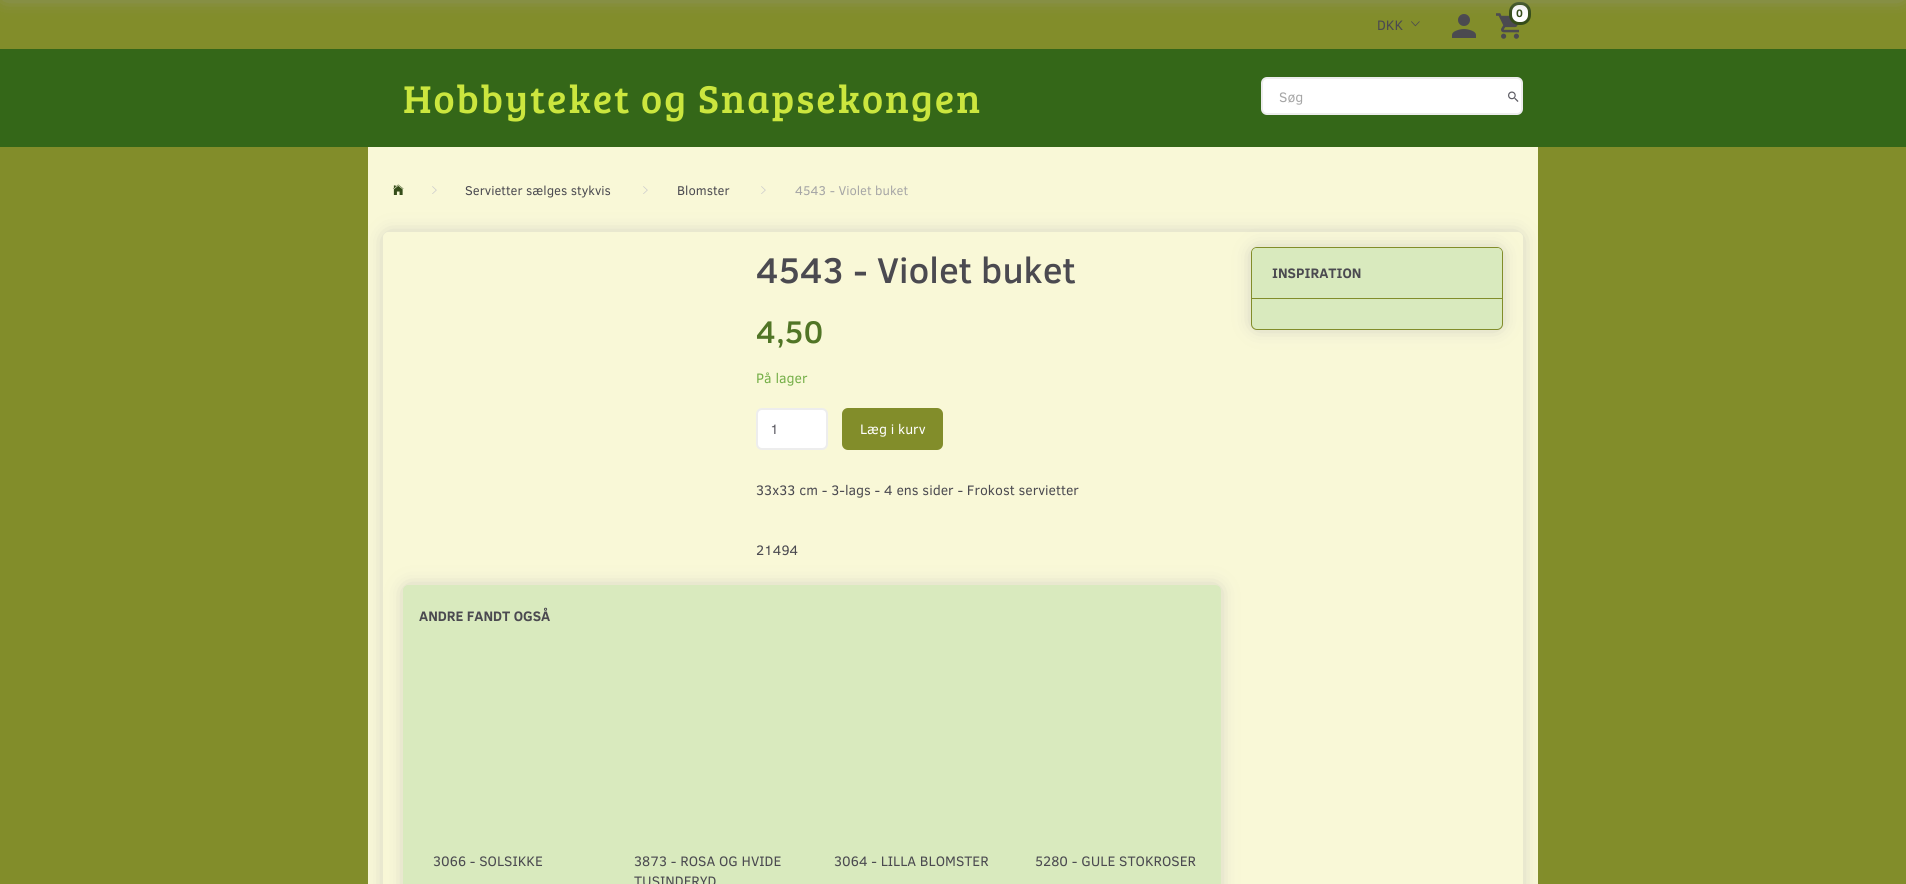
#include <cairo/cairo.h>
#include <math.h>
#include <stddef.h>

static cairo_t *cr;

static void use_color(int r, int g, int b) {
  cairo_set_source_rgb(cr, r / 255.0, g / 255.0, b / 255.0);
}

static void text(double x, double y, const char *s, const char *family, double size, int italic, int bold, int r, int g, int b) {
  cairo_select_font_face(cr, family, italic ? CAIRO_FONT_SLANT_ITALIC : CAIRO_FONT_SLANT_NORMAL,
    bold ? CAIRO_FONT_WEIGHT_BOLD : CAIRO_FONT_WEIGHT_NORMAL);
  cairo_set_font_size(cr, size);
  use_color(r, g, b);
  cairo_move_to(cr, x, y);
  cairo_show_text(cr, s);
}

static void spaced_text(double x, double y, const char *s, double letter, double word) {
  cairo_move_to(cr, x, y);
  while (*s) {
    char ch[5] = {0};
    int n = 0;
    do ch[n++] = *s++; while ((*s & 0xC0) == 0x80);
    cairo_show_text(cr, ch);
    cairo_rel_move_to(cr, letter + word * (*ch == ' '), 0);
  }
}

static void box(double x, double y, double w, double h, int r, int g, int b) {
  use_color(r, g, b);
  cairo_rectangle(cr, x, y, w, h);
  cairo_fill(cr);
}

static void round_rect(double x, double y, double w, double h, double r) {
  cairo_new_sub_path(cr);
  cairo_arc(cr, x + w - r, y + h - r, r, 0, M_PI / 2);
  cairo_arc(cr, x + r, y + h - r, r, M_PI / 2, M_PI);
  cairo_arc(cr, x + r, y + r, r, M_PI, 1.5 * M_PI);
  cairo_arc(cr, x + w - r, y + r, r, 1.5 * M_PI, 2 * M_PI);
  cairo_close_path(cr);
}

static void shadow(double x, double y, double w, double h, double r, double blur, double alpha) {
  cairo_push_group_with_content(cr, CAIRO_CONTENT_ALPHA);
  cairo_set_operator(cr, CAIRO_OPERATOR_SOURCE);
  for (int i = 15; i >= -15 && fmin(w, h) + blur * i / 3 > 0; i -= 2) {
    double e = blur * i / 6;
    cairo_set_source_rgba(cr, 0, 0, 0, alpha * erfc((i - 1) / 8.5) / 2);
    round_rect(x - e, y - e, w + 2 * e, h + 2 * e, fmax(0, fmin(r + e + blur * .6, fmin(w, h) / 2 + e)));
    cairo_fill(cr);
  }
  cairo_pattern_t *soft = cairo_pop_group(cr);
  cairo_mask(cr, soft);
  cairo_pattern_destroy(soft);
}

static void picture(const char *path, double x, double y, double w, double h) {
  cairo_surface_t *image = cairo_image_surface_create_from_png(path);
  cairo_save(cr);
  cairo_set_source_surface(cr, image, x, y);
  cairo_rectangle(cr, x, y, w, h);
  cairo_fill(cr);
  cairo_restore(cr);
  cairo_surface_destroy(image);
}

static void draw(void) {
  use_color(130, 141, 42);
  cairo_paint(cr);
  picture("img_01.png", 1411, 21, 9, 6);
  picture("img_02.png", 1452, 14, 24, 24);
  picture("img_03.png", 1496, 13, 23, 26);
  use_color(255, 255, 255);
  round_rect(1510.5, 3.5, 19, 20, 8.5);
  cairo_fill_preserve(cr);
  use_color(53, 77, 25);
  cairo_set_line_width(cr, 3);
  cairo_stroke(cr);
  use_color(148, 148, 148);
  shadow(5, -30, 1896, 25, 0, 10, 1);
  box(0, 49, 1906, 98, 52, 103, 24);
  use_color(255, 255, 255);
  round_rect(1262, 78, 260, 36, 5);
  cairo_fill_preserve(cr);
  use_color(237, 237, 237);
  cairo_set_line_width(cr, 2);
  cairo_stroke(cr);
  picture("img_04.png", 1508, 91, 11, 11);
  box(368, 147, 1170, 737, 249, 248, 215);
  picture("img_05.png", 393, 184, 11, 11);
  picture("img_06.png", 432, 186, 5, 8);
  picture("img_06.png", 643, 186, 5, 8);
  picture("img_06.png", 761, 186, 5, 8);
  cairo_save(cr);
  cairo_set_fill_rule(cr, CAIRO_FILL_RULE_EVEN_ODD);
  cairo_new_path(cr);
  cairo_move_to(cr, 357, 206);
  cairo_line_to(cr, 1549, 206);
  cairo_line_to(cr, 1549, 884);
  cairo_line_to(cr, 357, 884);
  cairo_close_path(cr);
  cairo_move_to(cr, 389, 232);
  cairo_line_to(cr, 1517, 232);
  cairo_curve_to(cr, 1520.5, 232, 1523, 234.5, 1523, 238);
  cairo_line_to(cr, 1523, 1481);
  cairo_curve_to(cr, 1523, 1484.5, 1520.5, 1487, 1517, 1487);
  cairo_line_to(cr, 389, 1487);
  cairo_curve_to(cr, 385.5, 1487, 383, 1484.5, 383, 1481);
  cairo_line_to(cr, 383, 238);
  cairo_curve_to(cr, 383, 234.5, 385.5, 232, 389, 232);
  cairo_close_path(cr);
  cairo_clip(cr);
  use_color(184, 184, 184);
  shadow(388, 237, 1130, 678, 1, 10, 1);
  cairo_restore(cr);
  use_color(255, 255, 255);
  round_rect(757, 409, 70, 40, 5);
  cairo_fill_preserve(cr);
  use_color(237, 237, 237);
  cairo_stroke(cr);
  use_color(130, 141, 42);
  round_rect(842, 408, 101, 42, 6);
  cairo_fill(cr);
  use_color(184, 184, 184);
  shadow(408, 590, 808, 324, 0, 10, 1);
  use_color(217, 234, 190);
  cairo_new_path(cr);
  cairo_move_to(cr, 409, 585);
  cairo_line_to(cr, 1215, 585);
  cairo_curve_to(cr, 1218.5, 585, 1221, 587.5, 1221, 591);
  cairo_line_to(cr, 1221, 647);
  cairo_line_to(cr, 403, 647);
  cairo_line_to(cr, 403, 591);
  cairo_curve_to(cr, 403, 587.5, 405.5, 585, 409, 585);
  cairo_close_path(cr);
  cairo_fill(cr);
  cairo_new_path(cr);
  cairo_move_to(cr, 409, 585);
  cairo_line_to(cr, 566, 585);
  cairo_line_to(cr, 566, 647);
  cairo_line_to(cr, 403, 647);
  cairo_line_to(cr, 403, 591);
  cairo_curve_to(cr, 403, 587.5, 405.5, 585, 409, 585);
  cairo_close_path(cr);
  cairo_fill(cr);
  box(403, 647, 818, 237, 217, 234, 190);
  use_color(184, 184, 184);
  shadow(1256, 252, 242, 73, 1, 10, 1);
  use_color(217, 234, 190);
  round_rect(1251.5, 247.5, 251, 82, 5.5);
  cairo_fill_preserve(cr);
  use_color(130, 141, 42);
  cairo_set_line_width(cr, 1);
  cairo_stroke(cr);
  use_color(217, 234, 190);
  cairo_new_path(cr);
  cairo_move_to(cr, 1257, 248);
  cairo_line_to(cr, 1497, 248);
  cairo_curve_to(cr, 1500, 248, 1502, 250, 1502, 253);
  cairo_line_to(cr, 1502, 299);
  cairo_line_to(cr, 1252, 299);
  cairo_line_to(cr, 1252, 253);
  cairo_curve_to(cr, 1252, 250, 1254, 248, 1257, 248);
  cairo_close_path(cr);
  cairo_fill(cr);
  box(1252, 298, 250, 1, 130, 141, 42);
  text(1377, 30, "DKK", "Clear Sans", 14, 0, 0, 75, 74, 80);
  text(1516, 17, "0", "Clear Sans", 11, 0, 1, 53, 77, 25);
  cairo_select_font_face(cr, "Bree Serif", CAIRO_FONT_SLANT_NORMAL, CAIRO_FONT_WEIGHT_NORMAL);
  cairo_set_font_size(cr, 40);
  use_color(203, 230, 62);
  spaced_text(403, 113, "Hobbyteket og Snapsekongen", 2, 0);
  text(1279, 102, "Søg", "Clear Sans", 14, 0, 0, 166, 166, 166);
  text(465, 195, "Servietter sælges stykvis", "Clear Sans", 13, 0, 0, 75, 74, 80);
  text(677, 195, "Blomster", "Clear Sans", 13, 0, 0, 75, 74, 80);
  text(795, 195, "4543 - Violet buket", "Clear Sans", 13, 0, 0, 166, 166, 166);
  text(756, 283, "4543 - Violet buket", "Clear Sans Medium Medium", 36.5, 0, 0, 75, 74, 80);
  text(756, 343, "4,50", "Clear Sans Medium Medium", 32, 0, 0, 81, 117, 38);
  text(756, 383, "På lager", "Clear Sans", 14, 0, 0, 117, 175, 72);
  text(770, 434, "1", "Clear Sans", 14, 0, 0, 92, 91, 99);
  text(860, 434, "Læg i kurv", "Clear Sans", 14, 0, 0, 255, 255, 255);
  text(756, 495, "33x33 cm - 3-lags - 4 ens sider - Frokost servietter", "Clear Sans", 14, 0, 0, 75, 74, 80);
  text(756, 555, "21494", "Clear Sans", 14, 0, 0, 75, 74, 80);
  text(419, 621, "ANDRE FANDT OGSÅ", "Clear Sans", 14, 0, 1, 75, 74, 80);
  text(433, 866, "3066 - SOLSIKKE", "Clear Sans", 14, 0, 0, 75, 74, 80);
  text(634, 866, "3873 - ROSA OG HVIDE", "Clear Sans", 14, 0, 0, 75, 74, 80);
  text(634, 886, "TUSINDFRYD", "Clear Sans", 14, 0, 0, 75, 74, 80);
  text(834, 866, "3064 - LILLA BLOMSTER", "Clear Sans", 14, 0, 0, 75, 74, 80);
  text(1035, 866, "5280 - GULE STOKROSER", "Clear Sans", 14, 0, 0, 75, 74, 80);
  text(1272, 278, "INSPIRATION", "Clear Sans", 14, 0, 1, 75, 74, 80);
}

int main(void) {
  cairo_surface_t *surface = cairo_image_surface_create(CAIRO_FORMAT_RGB24, 1906, 884);
  cr = cairo_create(surface);
  cairo_font_options_t *options = cairo_font_options_create();
  cairo_font_options_set_hint_metrics(options, CAIRO_HINT_METRICS_OFF);
  cairo_font_options_set_hint_style(options, CAIRO_HINT_STYLE_NONE);
  cairo_set_font_options(cr, options);
  cairo_set_miter_limit(cr, 4);
  draw();
  cairo_surface_write_to_png(surface, "out.png");
  cairo_font_options_destroy(options);
  cairo_destroy(cr);
  cairo_surface_destroy(surface);
  return 0;
}
